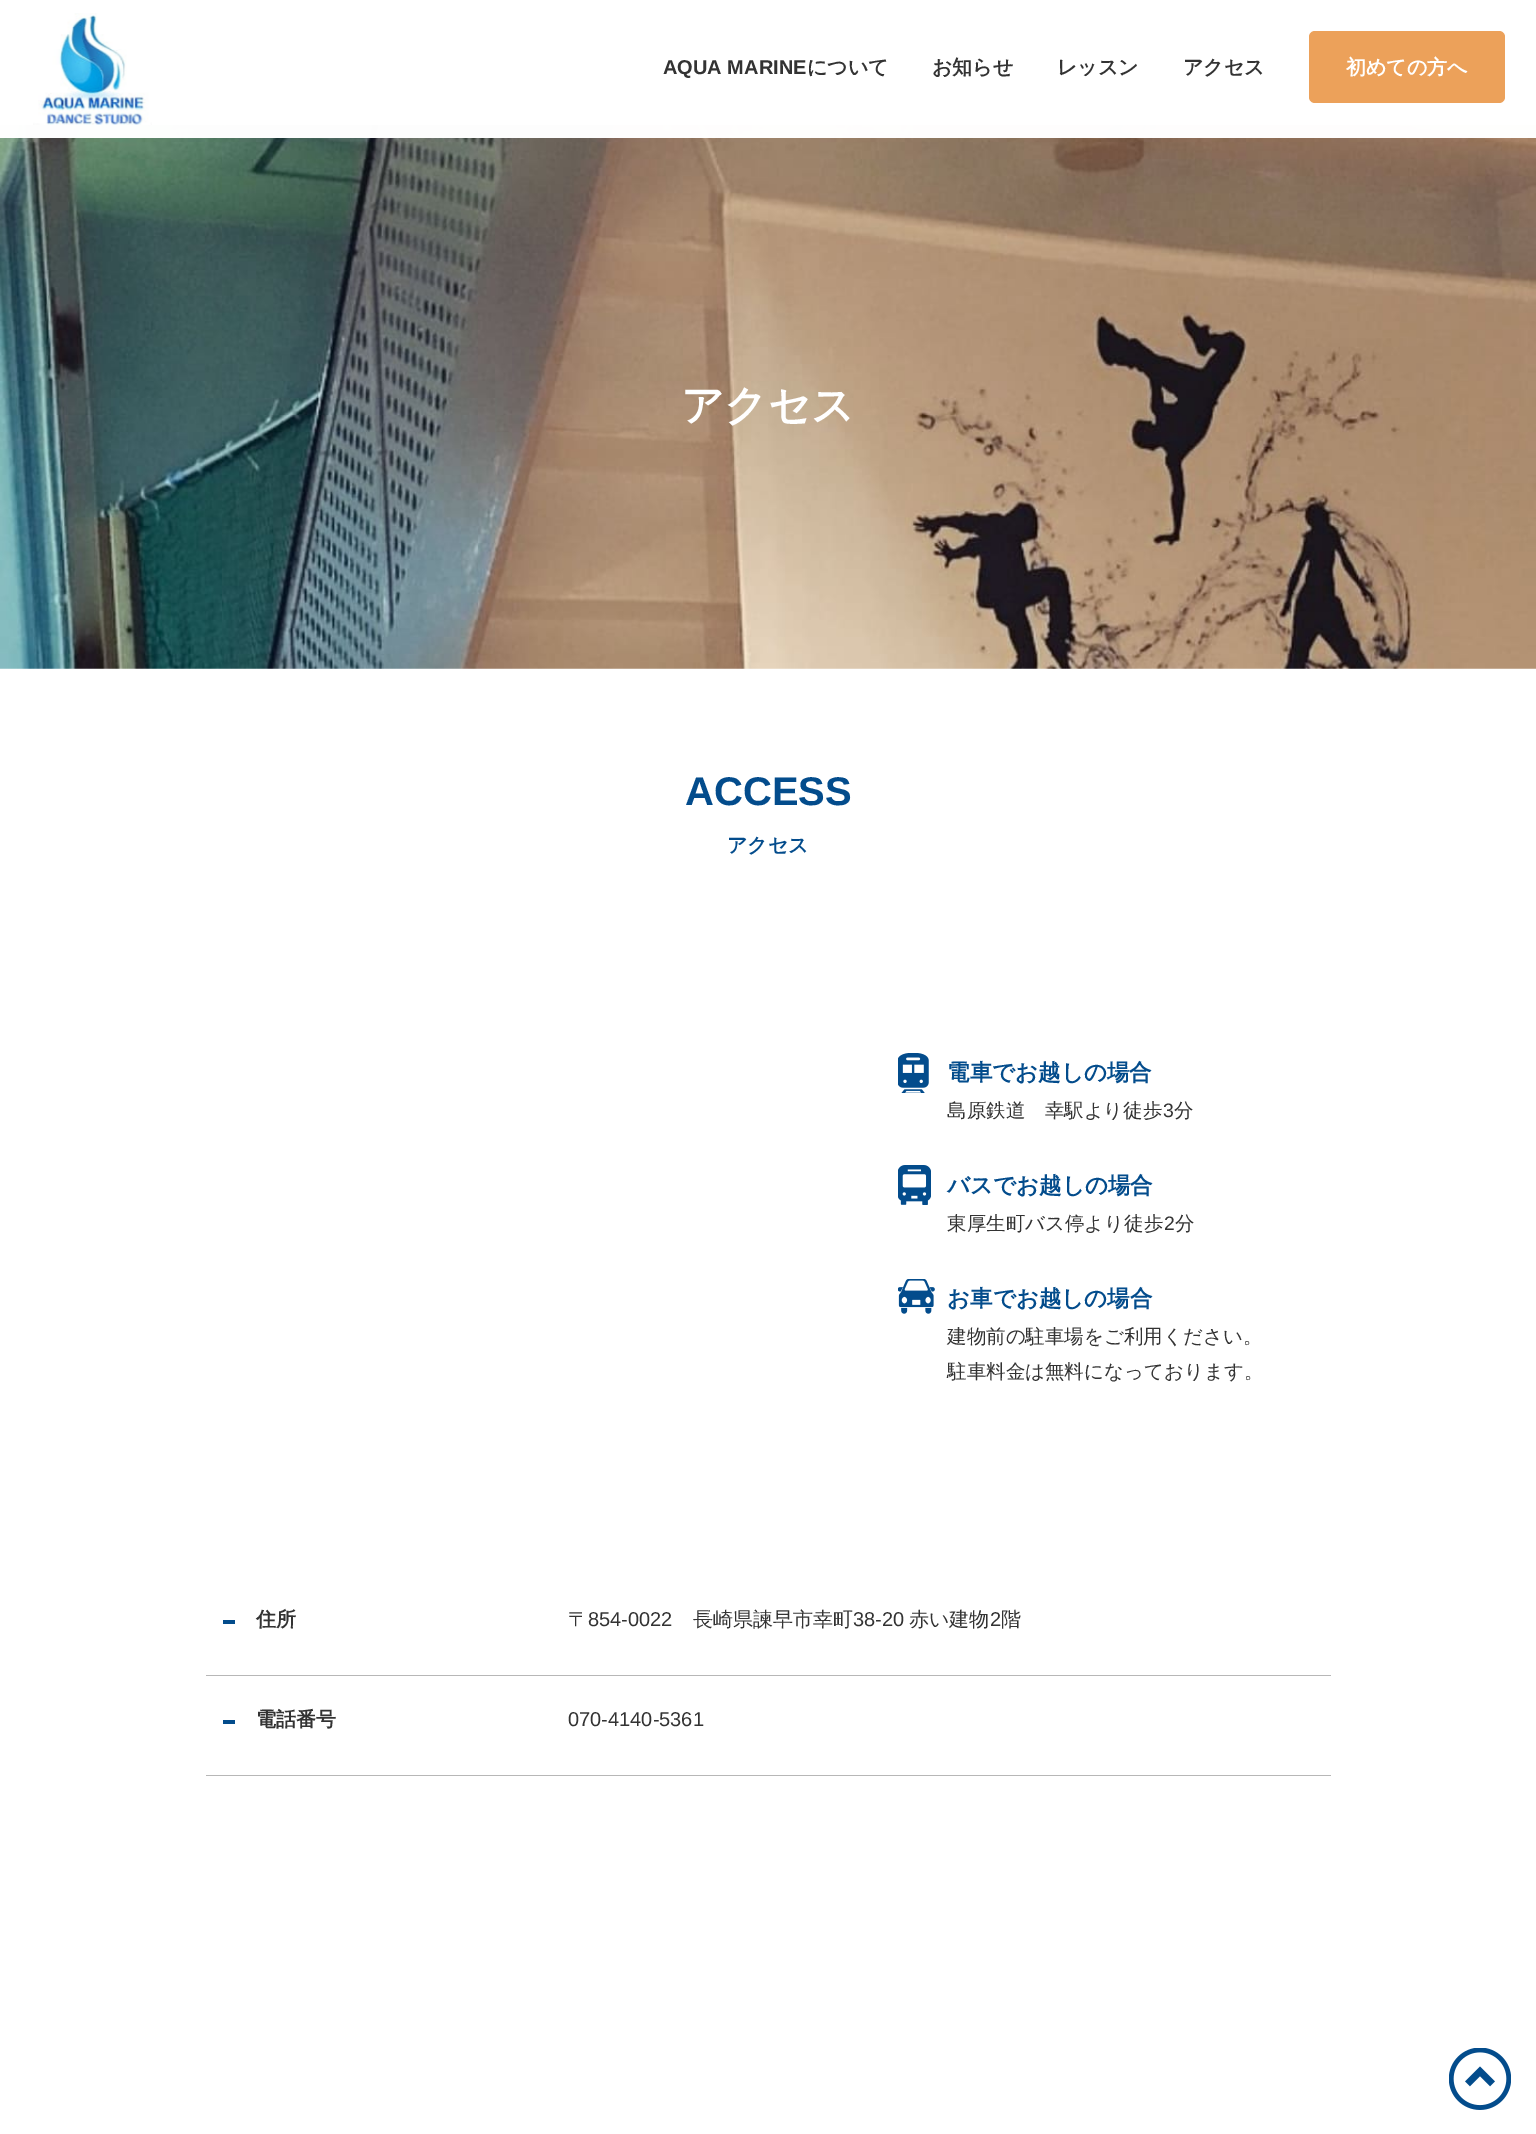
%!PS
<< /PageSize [1536 2134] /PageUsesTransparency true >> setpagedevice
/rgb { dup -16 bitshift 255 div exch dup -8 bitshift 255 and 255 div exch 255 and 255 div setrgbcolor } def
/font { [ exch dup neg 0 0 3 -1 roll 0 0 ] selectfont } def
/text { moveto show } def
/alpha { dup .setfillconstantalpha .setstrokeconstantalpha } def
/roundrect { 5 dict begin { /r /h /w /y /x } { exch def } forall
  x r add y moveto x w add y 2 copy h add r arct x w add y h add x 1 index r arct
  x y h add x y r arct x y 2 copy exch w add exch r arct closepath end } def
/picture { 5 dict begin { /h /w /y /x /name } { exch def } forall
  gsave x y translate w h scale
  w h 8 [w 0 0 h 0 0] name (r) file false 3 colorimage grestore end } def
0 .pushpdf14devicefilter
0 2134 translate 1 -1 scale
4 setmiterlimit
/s1 { /LiberationSans-Bold 20 font 16#333333 rgb } def
/s2 { /WenQuanYiZenHei-Bold 20 font 16#333333 rgb } def
/s3 { /WenQuanYiZenHei-Bold 20 font 16#FFFFFF rgb } def
/s4 { /WenQuanYiZenHei-Bold 42.5 font 16#FFFFFF rgb } def
/s5 { /LiberationSans-Bold 40 font 16#034C8C rgb } def
/s6 { /WenQuanYiZenHei-Bold 20 font 16#034C8C rgb } def
/s7 { /WenQuanYiZenHei-Bold 22.5 font 16#034C8C rgb } def
/s8 { /WenQuanYiZenHei-Medium 19.5 font 16#333333 rgb } def
/s9 { /LiberationSans-Regular 19.5 font 16#333333 rgb } def
/s10 { /WenQuanYiZenHei-Medium 20 font 16#333333 rgb } def
/s11 { /LiberationSans-Regular 20 font 16#333333 rgb } def
16#FFFFFF rgb
0 0 1536 2134 rectfill
(pic3.raw) 0 125 1536 544 picture
0.99 alpha
0 125 1536 13 rectfill
1 alpha
(pic1.raw) 33 13 119 112 picture
s1
(AQUA MARINE) 663 74 text
s2
(について) 807 74 text
(お知らせ) 932 74 text
(レッスン) 1057 74 text
(アクセス) 1183 74 text
16#ECA15A rgb
1309 31 196 72 6 roundrect fill
s3
(初めての方へ) 1346 74 text
(pic2.raw) 1449 2048 62 62 picture
s4
(アクセス) 681 420 text
s5
(ACCESS) 685 805 text
s6
(アクセス) 727 852 text
(pic4.raw) 898 1053 31 40 picture
s7
(電車でお越しの場合) 947 1080 text
s8
(島原鉄道　幸駅より徒歩) 947 1117 text
s9
(3) 1163 1117 text
s8
(分) 1174 1117 text
(pic5.raw) 898 1165 33 40 picture
s7
(バスでお越しの場合) 947 1193 text
s8
(東厚生町バス停より徒歩) 947 1230 text
s9
(2) 1164 1230 text
s8
(分) 1175 1230 text
(pic6.raw) 898 1279 37 35 picture
s7
(お車でお越しの場合) 947 1306 text
s8
(建物前の駐車場をご利用ください。) 947 1343 text
(駐車料金は無料になっております。) 947 1378 text
16#B7B7B7 rgb
206 1675 1125 1 rectfill
16#034C8C rgb
223 1620 12 4 rectfill
s2
(住所) 256 1626 text
s10
(〒) 568 1626 text
s11
(854-0022) 588 1626 text
s10
(長崎県諫早市幸町) 693 1626 text
s11
(38-20) 853 1626 text
s10
(赤い建物) 909 1626 text
s11
(2) 990 1626 text
s10
(階) 1001 1626 text
16#B7B7B7 rgb
206 1775 1125 1 rectfill
16#034C8C rgb
223 1720 12 4 rectfill
s2
(電話番号) 256 1726 text
s11
(070-4140-5361) 568 1726 text
.poppdf14devicefilter showpage
